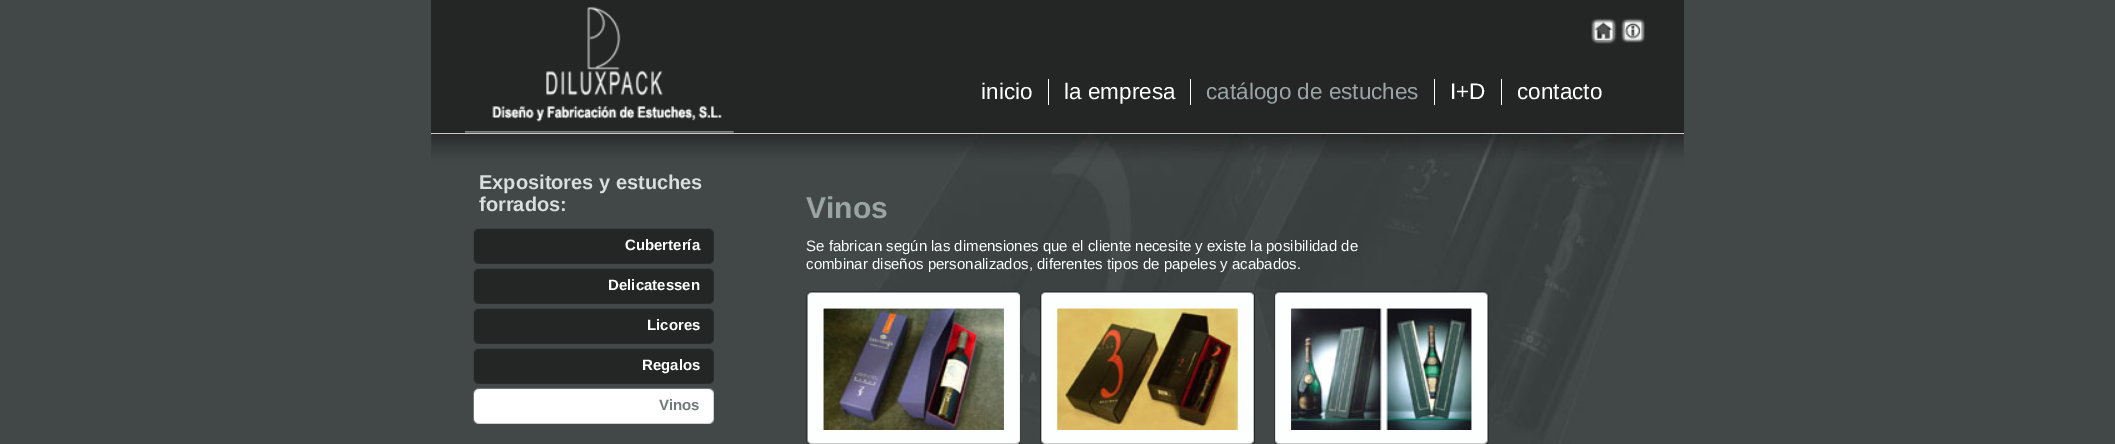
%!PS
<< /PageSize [2115 444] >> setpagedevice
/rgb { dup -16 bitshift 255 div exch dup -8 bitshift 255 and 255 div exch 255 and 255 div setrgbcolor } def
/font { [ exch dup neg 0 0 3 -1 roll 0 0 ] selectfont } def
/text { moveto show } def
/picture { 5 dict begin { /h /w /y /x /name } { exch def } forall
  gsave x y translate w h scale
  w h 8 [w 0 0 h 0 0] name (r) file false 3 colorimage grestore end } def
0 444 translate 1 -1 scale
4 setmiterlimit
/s1 { /LiberationSans-Regular 22.5 font 16#FFFFFF rgb } def
/s2 { /LiberationSans-Regular 22.5 font 16#9AA4A4 rgb } def
/s3 { /LiberationSans-Bold 20 font 16#D9DEDE rgb } def
/s4 { /LiberationSans-Bold 15 font 16#FFFFFF rgb } def
/s5 { /LiberationSans-Bold 15 font 16#717A7A rgb } def
/s6 { /LiberationSans-Bold 30 font 16#9AA4A4 rgb } def
/s7 { /LiberationSans-Regular 15 font 16#FFFFFF rgb } def
16#424747 rgb
0 0 2115 444 rectfill
16#242525 rgb
431 0 1253 133 rectfill
16#FFFFFF rgb
431 133 1253 1 rectfill
(pic1.raw) 465 7 269 126 picture
(pic2.raw) 1591 18 26 26 picture
(pic3.raw) 1621 18 24 25 picture
s1
(inicio) 981 99 text
1048 79 1 26 rectfill
(la empresa) 1064 99 text
1190 79 1 26 rectfill
s2
(catálogo de estuches) 1206 99 text
16#FFFFFF rgb
1434 79 1 26 rectfill
(I+D) 1450 99 text
1501 79 1 26 rectfill
(contacto) 1517 99 text
(pic4.raw) 431 133 1253 311 picture
s3
(Expositores y estuches) 479 189 text
(forrados:) 479 211 text
(pic5.raw) 473 228 241 36 picture
s4
(Cubertería) 625 250 text
(pic5.raw) 473 268 241 36 picture
(Delicatessen) 608 290 text
(pic5.raw) 473 308 241 36 picture
(Licores) 647 330 text
(pic5.raw) 473 348 241 36 picture
(Regalos) 642 370 text
(pic6.raw) 473 388 241 36 picture
s5
(Vinos) 659 410 text
s6
(Vinos) 806 218 text
s7
(Se fabrican según las dimensiones que el cliente necesite y existe la posibilidad de) 806 251 text
(combinar diseños personalizados, diferentes tipos de papeles y acabados.) 806 269 text
(pic7.raw) 806 291 215 153 picture
(pic8.raw) 823 308 181 122 picture
(pic9.raw) 1040 291 215 153 picture
(pic10.raw) 1057 308 181 122 picture
(pic11.raw) 1274 291 215 153 picture
(pic12.raw) 1291 308 181 122 picture
showpage
